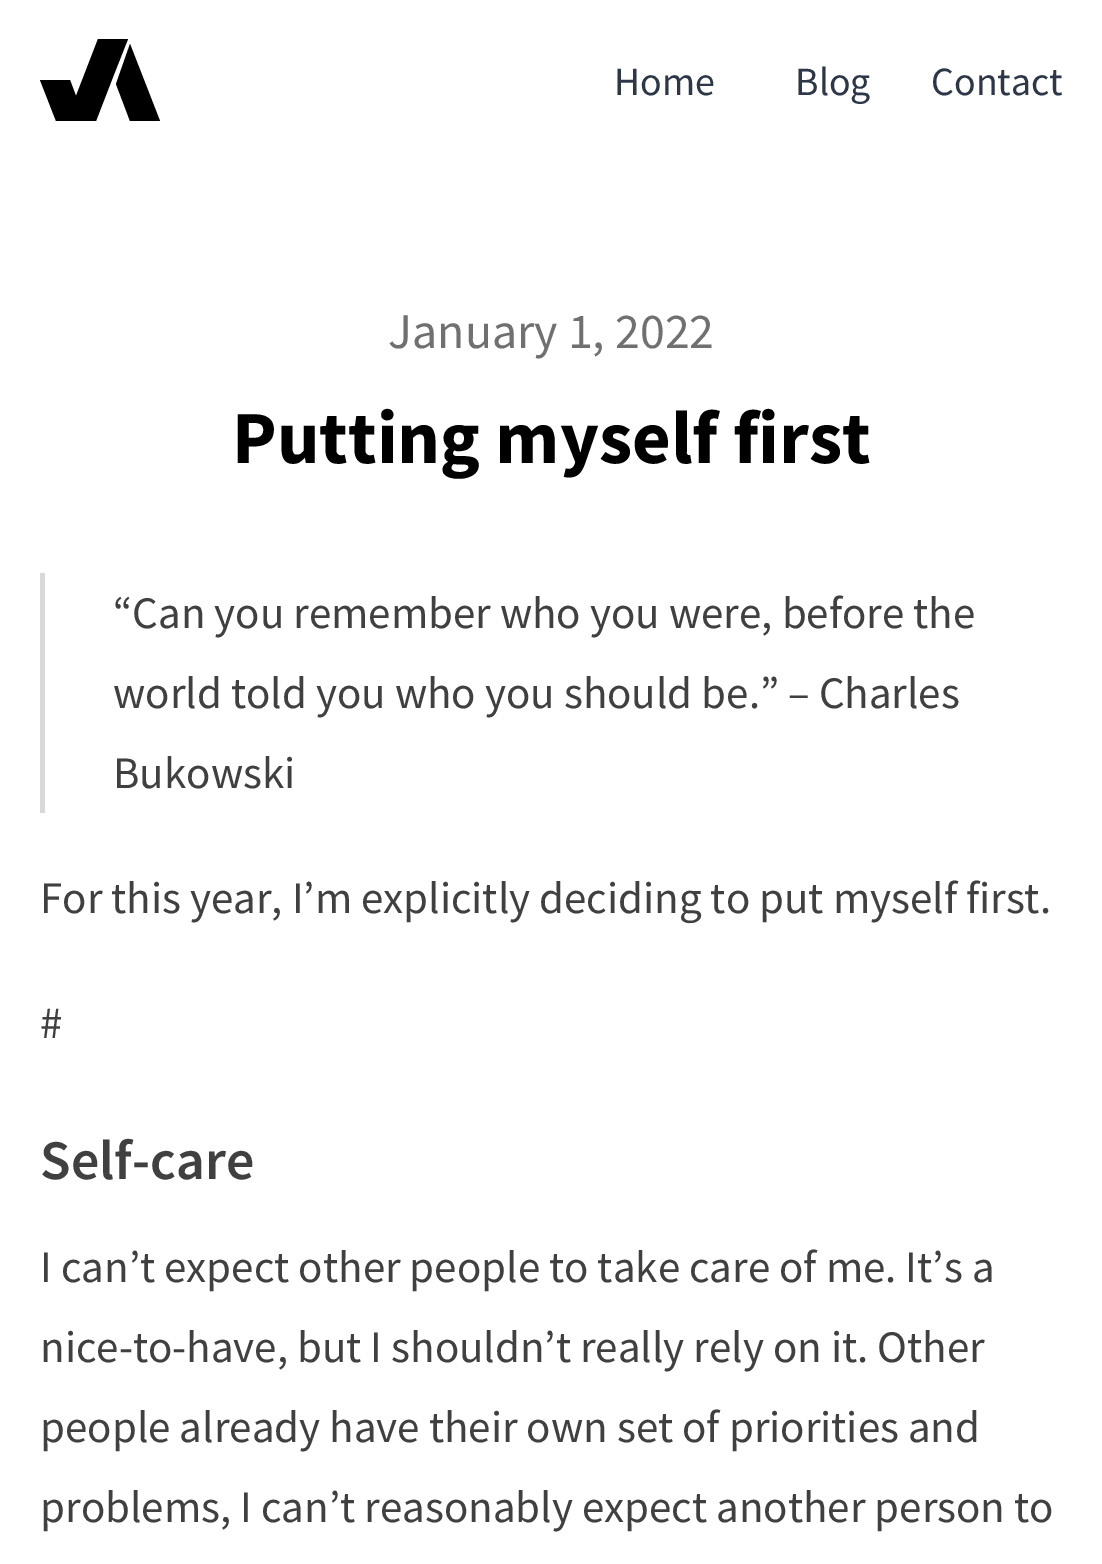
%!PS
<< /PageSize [1102 1564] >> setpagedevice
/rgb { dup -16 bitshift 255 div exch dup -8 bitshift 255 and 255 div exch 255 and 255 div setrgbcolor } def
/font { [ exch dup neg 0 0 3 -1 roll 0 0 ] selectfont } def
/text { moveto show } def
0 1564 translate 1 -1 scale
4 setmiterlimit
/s1 { /SourceSansPro-Regular 40 font 16#2D3748 rgb } def
/s2 { /SourceSansPro-Regular 50 font 16#707070 rgb } def
/s3 { /SourceSansPro-Bold 75 font 16#000000 rgb } def
/s4 { /SourceSansPro-Regular 45 font 16#404040 rgb } def
/s5 { /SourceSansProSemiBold-SemiBold 56 font 16#404040 rgb } def
16#FFFFFF rgb
0 0 1102 1564 rectfill
16#000000 rgb
116 84 moveto 130 121 lineto 160 121 lineto 130 44 lineto closepath fill
96 121 moveto 56 121 lineto 40 80 lineto 70 80 lineto 76 96 lineto 98 39 lineto 128 39 lineto 113 77 lineto closepath fill
s1
(Home) 614 95 text
(Blog) 795 95 text
(Contact) 931 95 text
s2
(January 1, 2022) 388 348 text
s3
(Putting myself first) 232 463 text
16#D9D9D9 rgb
40 573 5 240 rectfill
s4
(“Can you remember who you were, before the) 113 628 text
(world told you who you should be.” – Charles) 113 708 text
(Bukowski) 113 788 text
(For this year, I’m explicitly deciding to put myself first.) 40 913 text
(#) 40 1038 text
s5
(Self-care) 40 1179 text
s4
(I can’t expect other people to take care of me. It’s a) 40 1282 text
(nice-to-have, but I shouldn’t really rely on it. Other) 40 1362 text
(people already have their own set of priorities and) 40 1442 text
(problems, I can’t reasonably expect another person to) 40 1522 text
showpage
